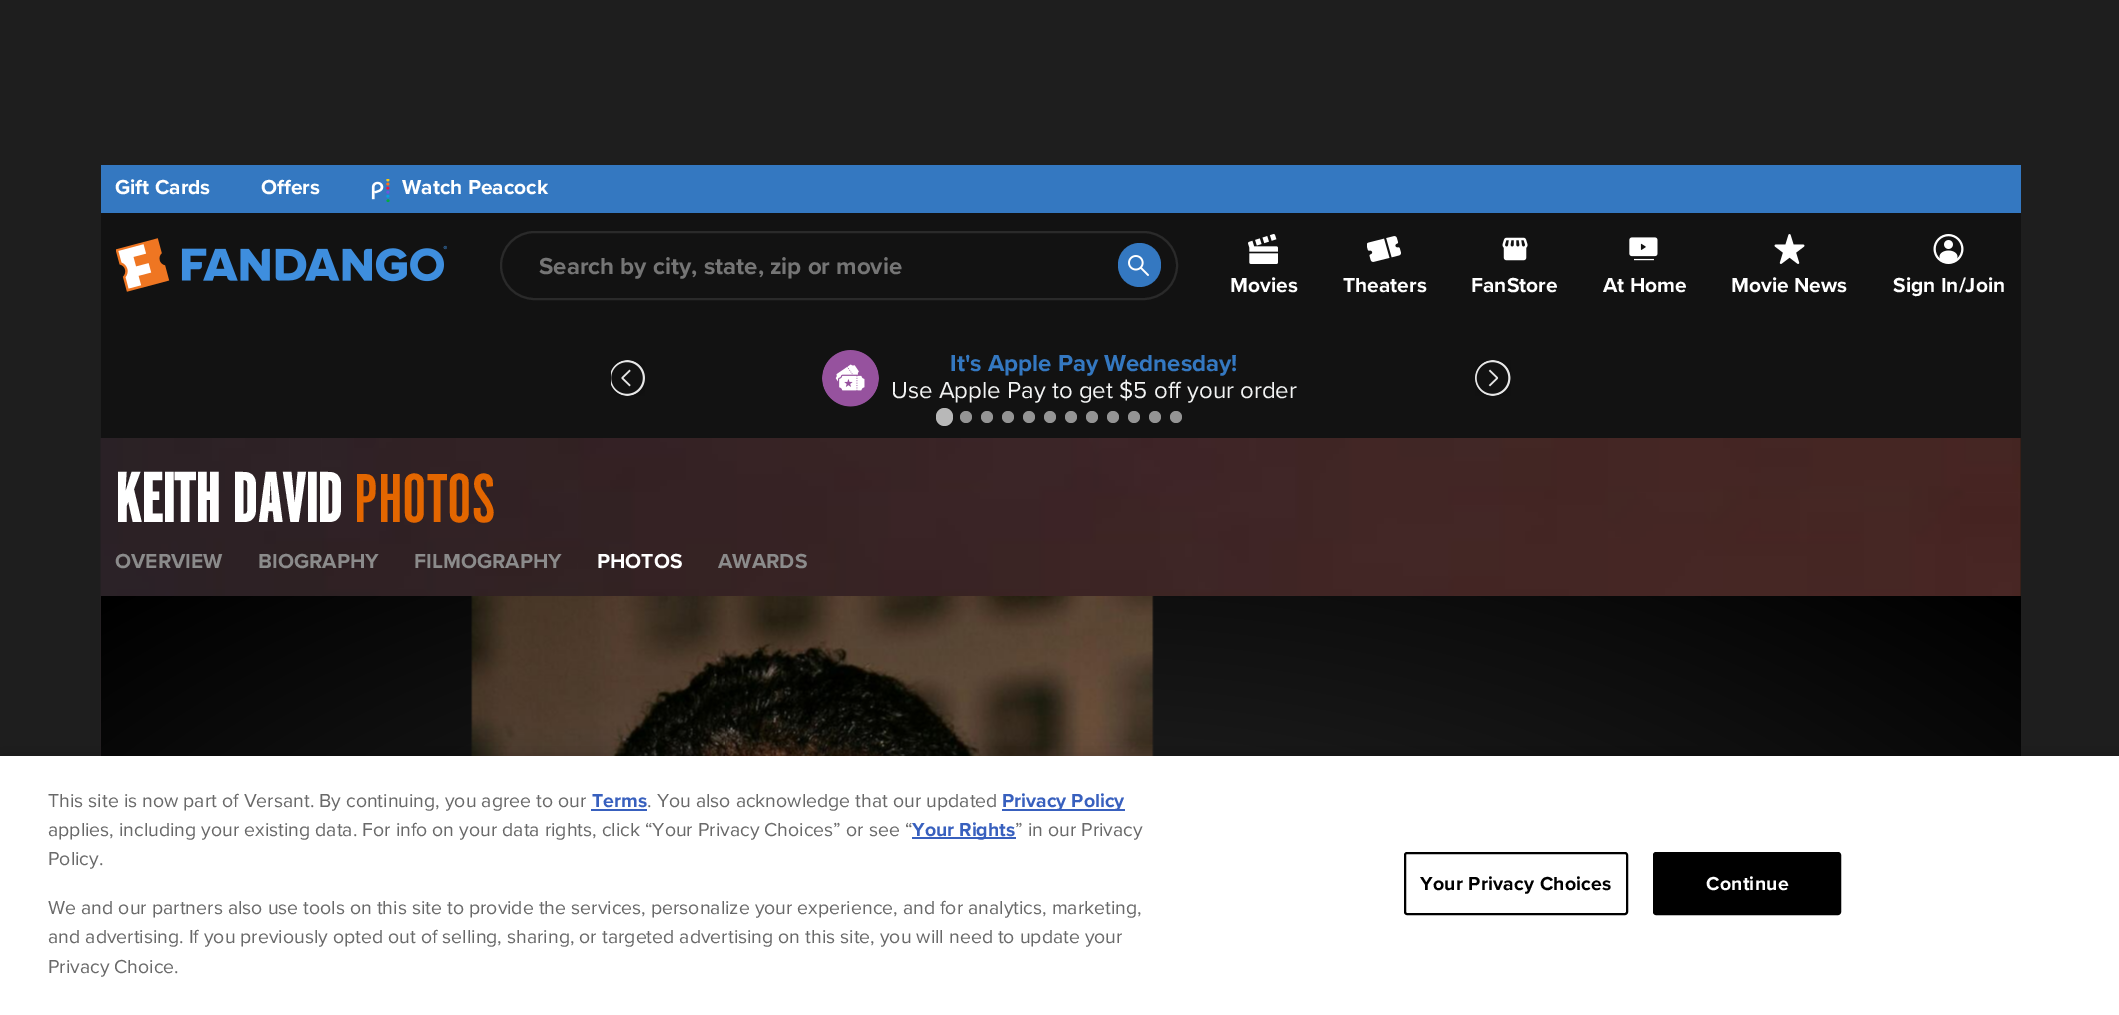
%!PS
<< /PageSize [2119 1015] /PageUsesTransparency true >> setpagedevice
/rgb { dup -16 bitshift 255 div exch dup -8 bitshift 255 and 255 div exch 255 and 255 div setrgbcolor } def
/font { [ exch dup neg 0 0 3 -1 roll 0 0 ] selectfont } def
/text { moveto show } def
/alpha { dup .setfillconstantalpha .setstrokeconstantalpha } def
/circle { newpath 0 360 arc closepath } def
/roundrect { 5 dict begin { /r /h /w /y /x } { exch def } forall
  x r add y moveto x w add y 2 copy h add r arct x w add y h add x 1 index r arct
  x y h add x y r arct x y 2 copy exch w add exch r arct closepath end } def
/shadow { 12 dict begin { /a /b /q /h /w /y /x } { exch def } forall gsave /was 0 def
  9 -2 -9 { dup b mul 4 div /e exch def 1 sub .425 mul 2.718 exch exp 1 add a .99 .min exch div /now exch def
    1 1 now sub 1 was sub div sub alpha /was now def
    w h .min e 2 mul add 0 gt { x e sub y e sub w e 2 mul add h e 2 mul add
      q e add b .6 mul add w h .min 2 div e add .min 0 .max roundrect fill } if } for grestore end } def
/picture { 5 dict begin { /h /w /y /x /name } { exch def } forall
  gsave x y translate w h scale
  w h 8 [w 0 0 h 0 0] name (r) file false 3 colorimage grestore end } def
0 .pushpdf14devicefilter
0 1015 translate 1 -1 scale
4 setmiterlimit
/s1 { /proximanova-Bold 21 font 16#FFFFFF rgb } def
/s2 { /proximanova-Bold 24 font 16#757575 rgb } def
/s3 { /proximanova-Bold 24 font 16#3478C1 rgb } def
/s4 { /ProximaNova-Regular 24 font 16#F2F3F3 rgb } def
/s5 { /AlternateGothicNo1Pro-Bold 72 font 16#FFFFFF rgb } def
/s6 { /AlternateGothicNo1Pro-Regular 72 font 16#E36600 rgb } def
/s7 { /proximanova-Bold 21 font 16#8B8B8B rgb } def
/s8 { /ProximaNova-Regular 19.5 font 16#696969 rgb } def
/s9 { /proximanova-Bold 19.5 font 16#3860BE rgb } def
16#1E1E1E rgb
0 0 2119 1015 rectfill
16#3478C1 rgb
101 165 1920 48 rectfill
s1
(Gift Cards) 115 194 text
(Offers) 261 194 text
(pic1.raw) 371 179 19 24 picture
(Watch Peacock) 402 194 text
16#121212 rgb
101 213 1920 225 rectfill
(pic2.raw) 116 238 331 54 picture
16#2A2A2A rgb
2 setlinewidth
501 232 676 67 33.5 roundrect stroke
s2
(Search by city, state, zip or movie) 539 274 text
16#3478C1 rgb
1118 243 43 44 21.5 roundrect fill
(pic3.raw) 1128 255 21 21 picture
(pic4.raw) 1248 234 30 30 picture
s1
(Movies) 1230 292 text
(pic5.raw) 1367 236 34 26 picture
(Theaters) 1343 292 text
(pic6.raw) 1502 237 26 24 picture
(FanStore) 1471 292 text
(pic7.raw) 1629 237 29 24 picture
(At Home) 1603 292 text
(pic8.raw) 1774 234 31 30 picture
(Movie News) 1731 292 text
(pic9.raw) 1933 234 31 30 picture
(Sign In/Join) 1893 292 text
(pic10.raw) 611 360 34 36 picture
(pic11.raw) 822 350 57 57 picture
s3
(It's Apple Pay Wednesday!) 950 371 text
s4
(Use Apple Pay to get $5 off your order) 891 398 text
(pic12.raw) 1475 360 36 36 picture
16#B8B8B8 rgb
936 408 17 18 8.5 roundrect fill
16#949494 rgb
966 417 6 circle fill
987 417 6 circle fill
1008 417 6 circle fill
1029 417 6 circle fill
1050 417 6 circle fill
1071 417 6 circle fill
1092 417 6 circle fill
1113 417 6 circle fill
1134 417 6 circle fill
1155 417 6 circle fill
1176 417 6 circle fill
16#271A10 rgb
2020 438 1 158 rectfill
(pic13.raw) 100 438 1921 318 picture
s5
(KEITH DAVID) 115 522 text
s6
(PHOTOS) 354 522 text
s7
(OVERVIEW) 115 568 text
(BIOGRAPHY) 258 568 text
(FILMOGRAPHY) 414 568 text
s1
(PHOTOS) 597 568 text
s7
(AWARDS) 718 568 text
gsave 101 596 moveto 2021 596 lineto 2021 756 lineto 101 756 lineto closepath clip newpath 1061 1113 translate 1358 732 scale
<< /ShadingType 3 /ColorSpace /DeviceRGB /Coords [0 0 0 0 0 1] /Extend [true true] /Function << /FunctionType 2 /Domain [0 1] /C0 [0.2 0.2 0.2] /C1 [0 0 0] /N 1 >> >> shfill grestore
(pic14.raw) 471 596 683 160 picture
16#000000 rgb
0 756 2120 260 0 13.5 0.2 shadow
16#FFFFFF rgb
0 756 2119 259 rectfill
s8
(This site is now part of Versant. By continuing, you agree to our) 48 807 text
s9
(Terms) 592 807 text
591 809 56 2 rectfill
s8
(. You also acknowledge that our updated) 647 807 text
16#3860BE rgb
1002 809 123 2 rectfill
s9
(Privacy Policy) 1002 807 text
s8
(applies, including your existing data. For info on your data rights, click “Your Privacy Choices” or see “) 48 836 text
16#3860BE rgb
912 837 104 2 rectfill
s9
(Your Rights) 912 836 text
s8
(” in our Privacy) 1015 836 text
(Policy.) 48 865 text
(We and our partners also use tools on this site to provide the services, personalize your experience, and for analytics, marketing,) 48 914 text
(and advertising. If you previously opted out of selling, sharing, or targeted advertising on this site, you will need to update your) 48 943 text
(Privacy Choice.) 48 973 text
16#000000 rgb
1405 853 222 61 2 roundrect stroke
/proximanova-Bold 19.5 font
1420 890 moveto 0.25 0 (Your Privacy Choices) ashow
1654 853 186 61 2 roundrect gsave fill grestore
stroke
16#FFFFFF rgb
1706 890 moveto 0.25 0 (Continue) ashow
.poppdf14devicefilter showpage
